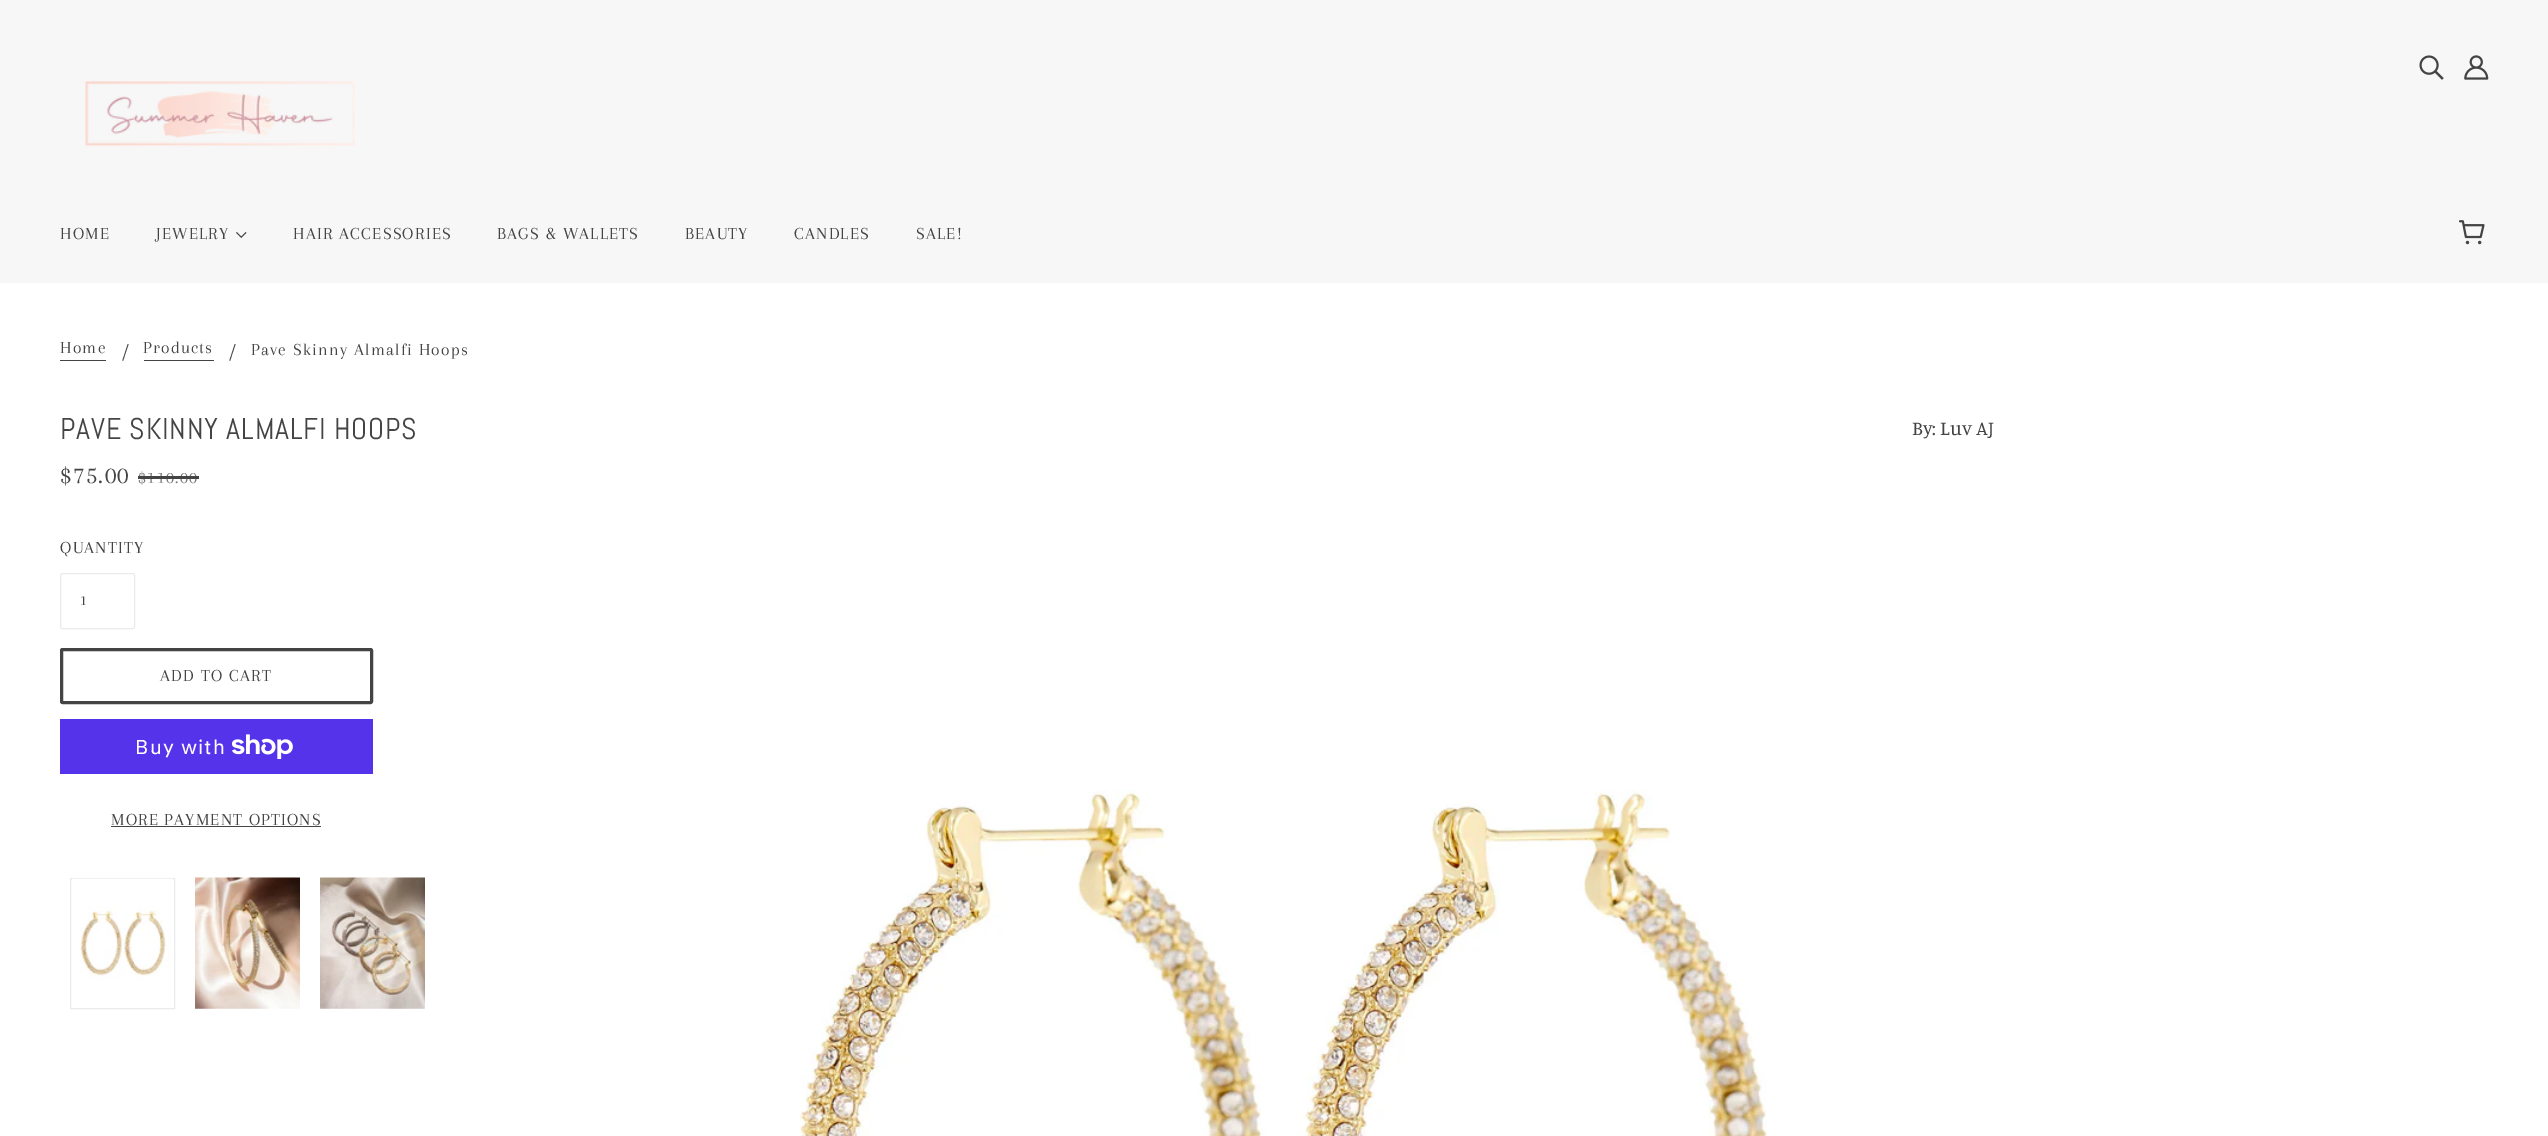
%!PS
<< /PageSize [2548 1136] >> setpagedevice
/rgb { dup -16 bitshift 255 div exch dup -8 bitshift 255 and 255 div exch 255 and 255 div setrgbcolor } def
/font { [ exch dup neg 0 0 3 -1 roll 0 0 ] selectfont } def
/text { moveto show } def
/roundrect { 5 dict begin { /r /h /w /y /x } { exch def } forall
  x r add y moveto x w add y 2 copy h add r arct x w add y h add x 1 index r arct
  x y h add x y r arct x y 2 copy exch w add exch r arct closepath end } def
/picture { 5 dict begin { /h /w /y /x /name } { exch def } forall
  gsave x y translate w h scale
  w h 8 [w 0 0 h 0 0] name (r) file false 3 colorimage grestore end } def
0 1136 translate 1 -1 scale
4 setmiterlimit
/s1 { /Manuale-Regular 20 font 16#444444 rgb } def
16#FFFFFF rgb
0 0 2548 1136 rectfill
16#F7F7F7 rgb
0 0 2548 283 rectfill
(pic1.raw) 2419 55 25 25 picture
(pic2.raw) 2464 55 25 25 picture
(pic3.raw) 85 81 270 66 picture
/Arapey-Regular 17.5 font
16#444444 rgb
60 239 moveto 1.25 0 (HOME) ashow
156 239 moveto 1.25 0 (JEWELRY) ashow
(pic4.raw) 236 232 11 6 picture
293 239 moveto 1.25 0 (HAIR ACCESSORIES) ashow
497 239 moveto 1.25 0 (BAGS & WALLETS) ashow
685 239 moveto 1.25 0 (BEAUTY) ashow
794 239 moveto 1.25 0 (CANDLES) ashow
916 239 moveto 1.25 0 (SALE!) ashow
(pic5.raw) 2459 220 26 25 picture
60 353 moveto 1.25 0 (Home) ashow
60 360 46 1 rectfill
s1
(/) 122 358 text
/Arapey-Regular 17.5 font
143 353 moveto 1.25 0 (Products) ashow
144 360 70 1 rectfill
s1
(/) 229 358 text
/Arapey-Regular 17.5 font
251 355 moveto 1.25 0 (Pave Skinny Almalfi Hoops) ashow
/Abel-Regular 30 font
60 439 moveto 0.75 0 (PAVE SKINNY ALMALFI HOOPS) ashow
s1
(By: Luv AJ) 1912 435 text
/Arapey-Regular 25 font
60 483 moveto 1.25 0 ($75.00) ashow
/Arapey-Regular 17.5 font
16#747474 rgb
138 483 moveto 1.25 0 ($110.00) ashow
16#444444 rgb
138 476 61 3 rectfill
60 553 moveto 1.25 0 (QUANTITY) ashow
16#EBEBEB rgb
60.5 573.5 74 55 2 roundrect stroke
/Arapey-Regular 15 font
16#444444 rgb
80 605 moveto 1 0 (1) ashow
3 setlinewidth
61.5 649.5 310 53 1 roundrect stroke
/Arapey-Regular 17.5 font
160 681 moveto 1.25 0 (ADD TO CART) ashow
16#5433EB rgb
60 719 313 55 rectfill
/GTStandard-Regular 20 font
16#FFFFFF rgb
135 754 moveto 1.25 0 (Buy with) ashow
(pic6.raw) 231 734 62 25 picture
/Arapey-Regular 17.5 font
16#444444 rgb
111 825 moveto 1.25 0 (MORE PAYMENT OPTIONS) ashow
111 826 210 1 rectfill
16#EBEBEB rgb
1 setlinewidth
70.5 878.5 104 130 rectstroke
(pic7.raw) 72 878 101 101 picture
(pic8.raw) 195 877 105 132 picture
(pic9.raw) 320 877 105 132 picture
(pic10.raw) 800 790 967 346 picture
showpage
